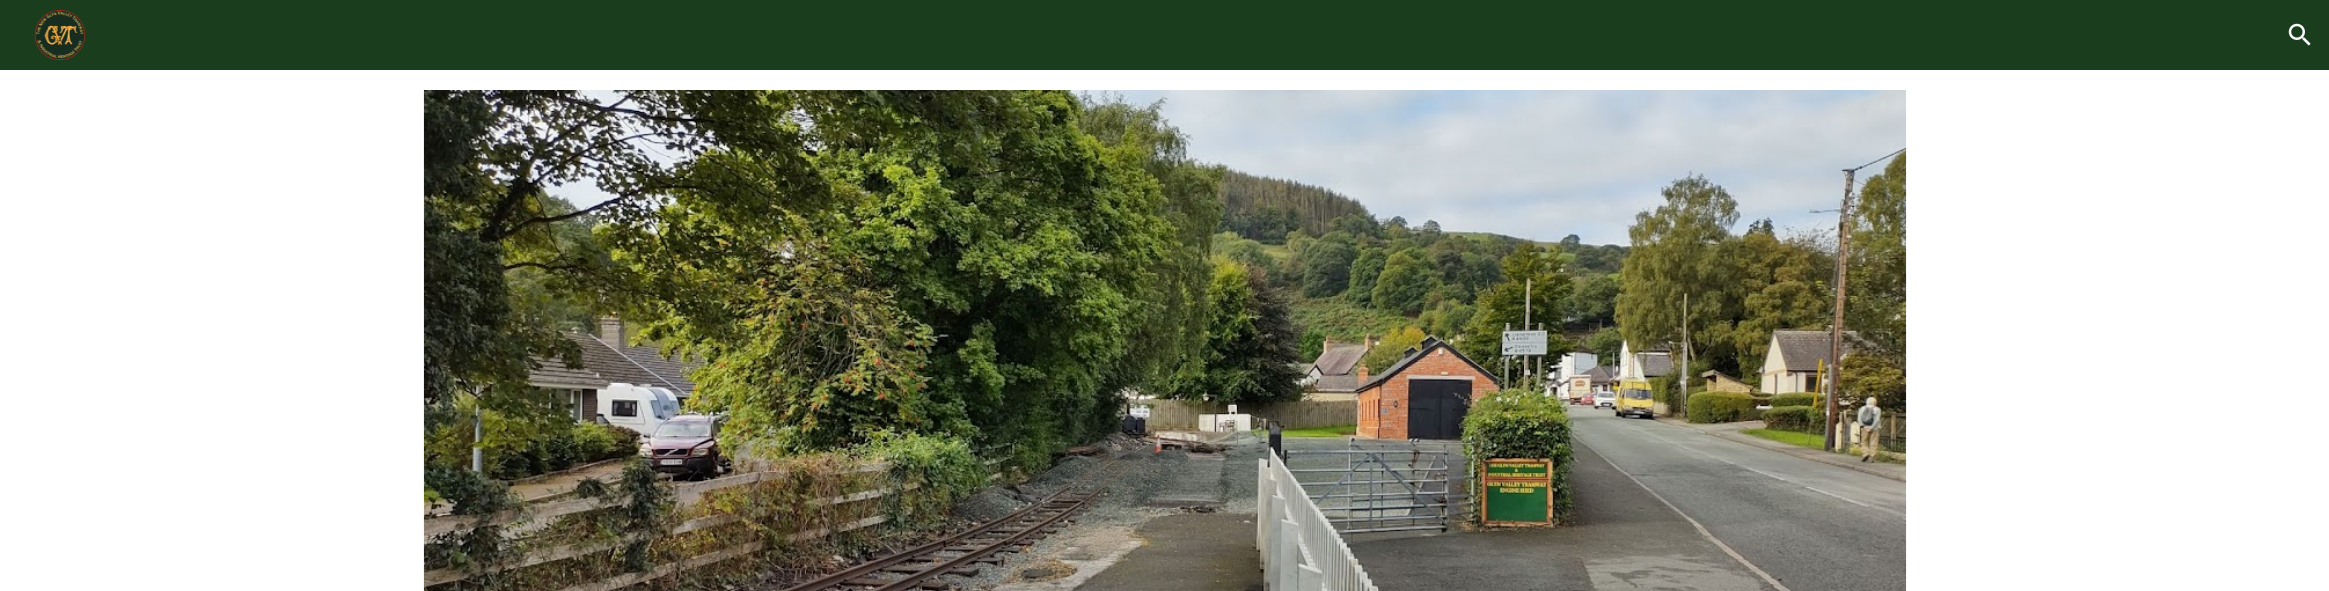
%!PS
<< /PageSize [2329 591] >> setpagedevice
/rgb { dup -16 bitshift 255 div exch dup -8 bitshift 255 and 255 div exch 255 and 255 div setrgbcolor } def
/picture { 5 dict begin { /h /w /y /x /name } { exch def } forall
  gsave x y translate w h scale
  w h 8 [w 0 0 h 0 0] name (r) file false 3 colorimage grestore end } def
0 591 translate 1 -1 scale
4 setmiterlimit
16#FFFFFF rgb
0 0 2329 591 rectfill
16#193D1D rgb
0 0 2329 70 rectfill
(pic1.raw) 34 10 52 50 picture
(pic2.raw) 2288 23 23 23 picture
(pic3.raw) 423 90 1484 501 picture
showpage
